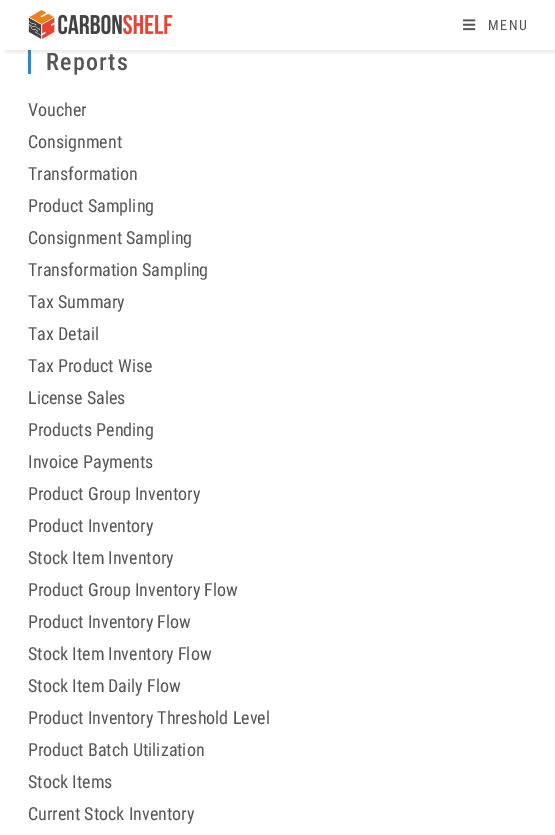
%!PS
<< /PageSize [555 835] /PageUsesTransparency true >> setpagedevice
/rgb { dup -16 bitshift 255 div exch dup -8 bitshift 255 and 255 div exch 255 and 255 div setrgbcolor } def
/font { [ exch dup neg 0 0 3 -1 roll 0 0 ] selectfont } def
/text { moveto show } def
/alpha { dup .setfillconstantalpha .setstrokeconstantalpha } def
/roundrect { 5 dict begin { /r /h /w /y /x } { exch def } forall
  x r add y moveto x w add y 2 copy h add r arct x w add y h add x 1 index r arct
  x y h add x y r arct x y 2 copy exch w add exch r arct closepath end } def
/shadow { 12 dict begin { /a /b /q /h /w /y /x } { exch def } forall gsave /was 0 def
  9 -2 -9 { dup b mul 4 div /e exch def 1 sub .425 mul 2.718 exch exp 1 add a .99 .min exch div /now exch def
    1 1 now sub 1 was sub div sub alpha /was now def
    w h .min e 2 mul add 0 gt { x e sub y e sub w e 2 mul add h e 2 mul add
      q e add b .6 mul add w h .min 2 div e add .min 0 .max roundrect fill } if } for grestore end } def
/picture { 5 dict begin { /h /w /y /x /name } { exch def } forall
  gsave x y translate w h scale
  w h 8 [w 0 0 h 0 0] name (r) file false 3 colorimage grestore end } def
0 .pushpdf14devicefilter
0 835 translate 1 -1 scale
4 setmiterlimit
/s1 { /RobotoCondensed-Regular 18 font 16#565656 rgb } def
16#FFFFFF rgb
0 0 555 835 rectfill
16#228BD6 rgb
28 50 3 24 rectfill
gsave
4 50 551 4 rectclip
16#000000 rgb
5 2 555 50 0 2.5 0.1 shadow
grestore
(pic1.raw) 28 10 145 29 picture
(pic2.raw) 463 19 13 12 picture
/RobotoCondensed-Regular 14 font
16#565656 rgb
488 30 moveto 1.5 0 (MENU) ashow
/RobotoCondensed-Medium 24 font
46 70 moveto 1.25 0 (Reports) ashow
s1
(Voucher) 28 116 text
(Consignment) 28 148 text
(Transformation) 28 180 text
(Product Sampling) 28 212 text
(Consignment Sampling) 28 244 text
(Transformation Sampling) 28 276 text
(Tax Summary) 28 308 text
(Tax Detail) 28 340 text
(Tax Product Wise) 28 372 text
(License Sales) 28 404 text
(Products Pending) 28 436 text
(Invoice Payments) 28 468 text
(Product Group Inventory) 28 500 text
(Product Inventory) 28 532 text
(Stock Item Inventory) 28 564 text
(Product Group Inventory Flow) 28 596 text
(Product Inventory Flow) 28 628 text
(Stock Item Inventory Flow) 28 660 text
(Stock Item Daily Flow) 28 692 text
(Product Inventory Threshold Level) 28 724 text
(Product Batch Utilization) 28 756 text
(Stock Items) 28 788 text
(Current Stock Inventory) 28 820 text
.poppdf14devicefilter showpage
